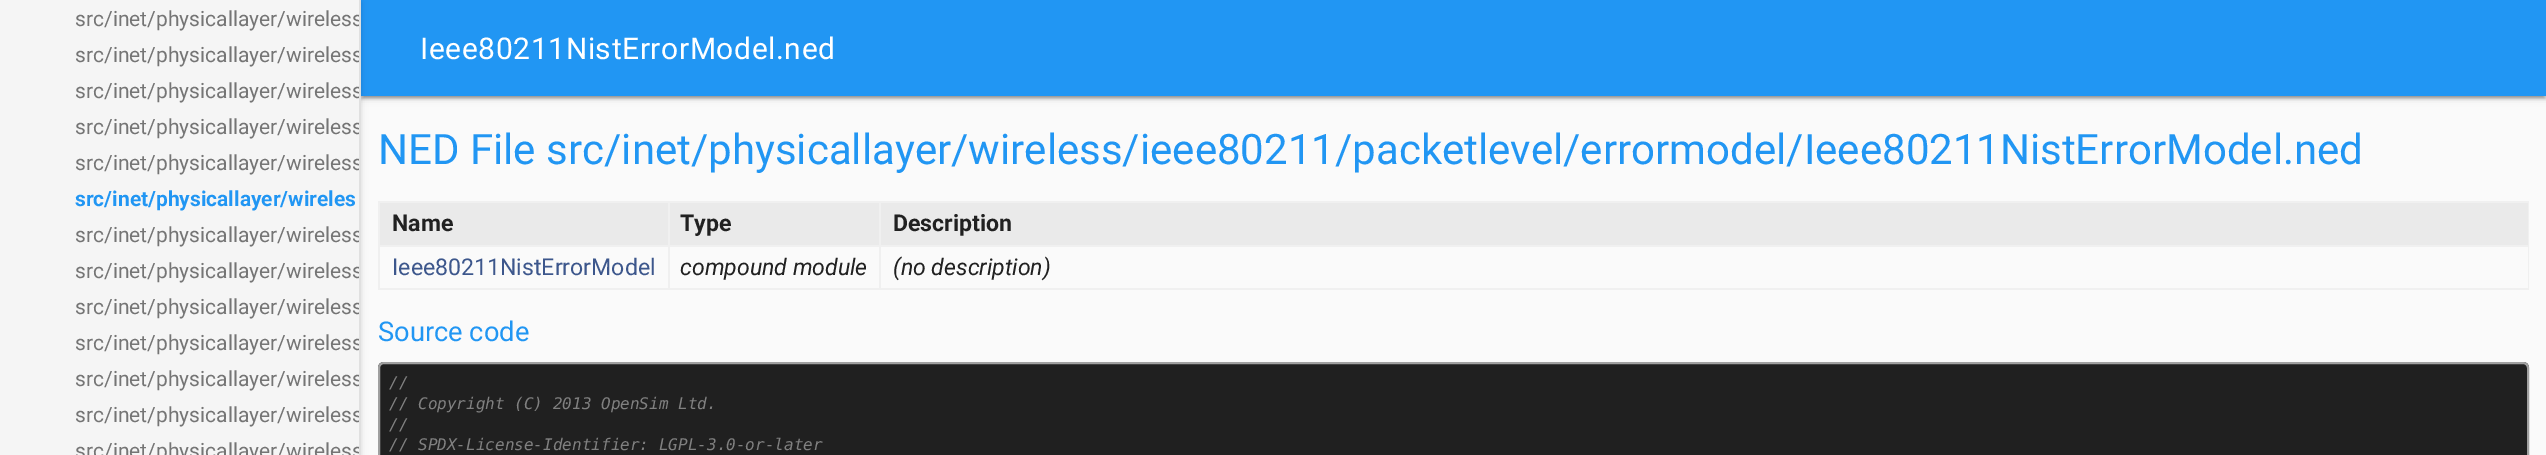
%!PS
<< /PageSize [2546 455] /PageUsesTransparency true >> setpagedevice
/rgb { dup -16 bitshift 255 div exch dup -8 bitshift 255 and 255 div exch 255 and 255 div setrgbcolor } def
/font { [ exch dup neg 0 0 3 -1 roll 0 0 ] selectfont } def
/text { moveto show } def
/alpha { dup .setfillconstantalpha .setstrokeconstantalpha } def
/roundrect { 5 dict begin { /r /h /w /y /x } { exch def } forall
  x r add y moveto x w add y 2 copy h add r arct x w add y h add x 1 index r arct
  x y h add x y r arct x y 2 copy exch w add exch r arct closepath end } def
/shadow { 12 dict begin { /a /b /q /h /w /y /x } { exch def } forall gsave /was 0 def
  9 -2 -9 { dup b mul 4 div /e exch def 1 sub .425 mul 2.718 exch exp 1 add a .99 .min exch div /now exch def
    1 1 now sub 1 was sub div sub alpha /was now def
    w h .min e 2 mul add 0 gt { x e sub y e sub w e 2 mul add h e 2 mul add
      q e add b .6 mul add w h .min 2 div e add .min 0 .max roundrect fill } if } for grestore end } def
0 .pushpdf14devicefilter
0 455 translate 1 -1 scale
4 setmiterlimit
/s1 { /Roboto-Regular 21 font 16#757575 rgb } def
/s2 { /Roboto-Bold 21 font 16#2196F3 rgb } def
/s3 { /Roboto-Regular 42 font 16#2196F3 rgb } def
/s4 { /Roboto-Bold 23.1 font 16#212121 rgb } def
/s5 { /Roboto-Regular 23.1 font 16#3D578C rgb } def
/s6 { /Roboto-Italic 23.1 font 16#212121 rgb } def
/s7 { /Roboto-Regular 27.25 font 16#2196F3 rgb } def
/s8 { /DejaVuSansMono-Italic 16 font 16#808080 rgb } def
16#FAFAFA rgb
0 0 2546 455 rectfill
16#000000 rgb
360 2 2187 96 0 4 0.12 shadow
363 8 2181 90 0 1 0.2 shadow
360 3 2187 96 0 1.5 0.14 shadow
16#2196F3 rgb
361 0 2185 96 rectfill
16#000000 rgb
0 2 360 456 0 4 0.12 shadow
0 3 360 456 0 1.5 0.14 shadow
16#E0E0E0 rgb
359 0 2 455 rectfill
16#F5F5F5 rgb
0 0 359 455 rectfill
gsave
0 0 359 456 rectclip
s1
(src/inet/physicallayer/wireless) 75 26 text
(src/inet/physicallayer/wireless) 75 62 text
(src/inet/physicallayer/wireless) 75 98 text
(src/inet/physicallayer/wireless) 75 134 text
(src/inet/physicallayer/wireless) 75 170 text
grestore
s2
(src/inet/physicallayer/wireles) 75 206 text
gsave
0 0 359 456 rectclip
s1
(src/inet/physicallayer/wireless) 75 242 text
(src/inet/physicallayer/wireless) 75 278 text
(src/inet/physicallayer/wireless) 75 314 text
(src/inet/physicallayer/wireless) 75 350 text
(src/inet/physicallayer/wireless) 75 386 text
(src/inet/physicallayer/wireless) 75 422 text
(src/inet/physicallayer/wireless) 75 458 text
grestore
/Roboto-Regular 30 font
16#FFFFFF rgb
420 59 moveto 0.6 0 (Ieee80211NistErrorModel.ned) ashow
s3
(NED File src/inet/physicallayer/wireless/ieee80211/packetlevel/errormodel/Ieee80211NistErrorModel.ned) 378 164 text
16#F0F0F0 rgb
378 201 2151 2 rectfill
2528 201 1 89 rectfill
378 288 2151 2 rectfill
378 201 2 89 rectfill
16#EAEAEA rgb
380 203 288 42 rectfill
s4
(Name) 392 231 text
16#EAEAEA rgb
670 203 209 42 rectfill
16#F0F0F0 rgb
879 245 1650 2 rectfill
879 245 2 45 rectfill
668 245 213 2 rectfill
668 245 2 45 rectfill
378 245 291 2 rectfill
668 201 2 45 rectfill
s4
(Type) 680 231 text
16#EAEAEA rgb
881 203 1647 42 rectfill
16#F0F0F0 rgb
879 201 2 45 rectfill
s4
(Description) 893 231 text
s5
(Ieee80211NistErrorModel) 392 275 text
s6
(compound module) 680 275 text
(\(no description\)) 893 275 text
s7
(Source code) 378 341 text
16#202020 rgb
384 362 moveto 2523 362 lineto 2526.5 362 2529 364.5 2529 368 curveto 2529 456 lineto 378 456 lineto 378 368 lineto 378 364.5 380.5 362 384 362 curveto closepath fill
16#A0A0A0 rgb
2 setlinewidth
379 363 2149 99 5 roundrect stroke
s8
(//) 389 388 text
(// Copyright \(C\) 2013 OpenSim Ltd.) 389 409 text
(//) 389 430 text
(// SPDX-License-Identifier: LGPL-3.0-or-later) 389 450 text
.poppdf14devicefilter showpage
